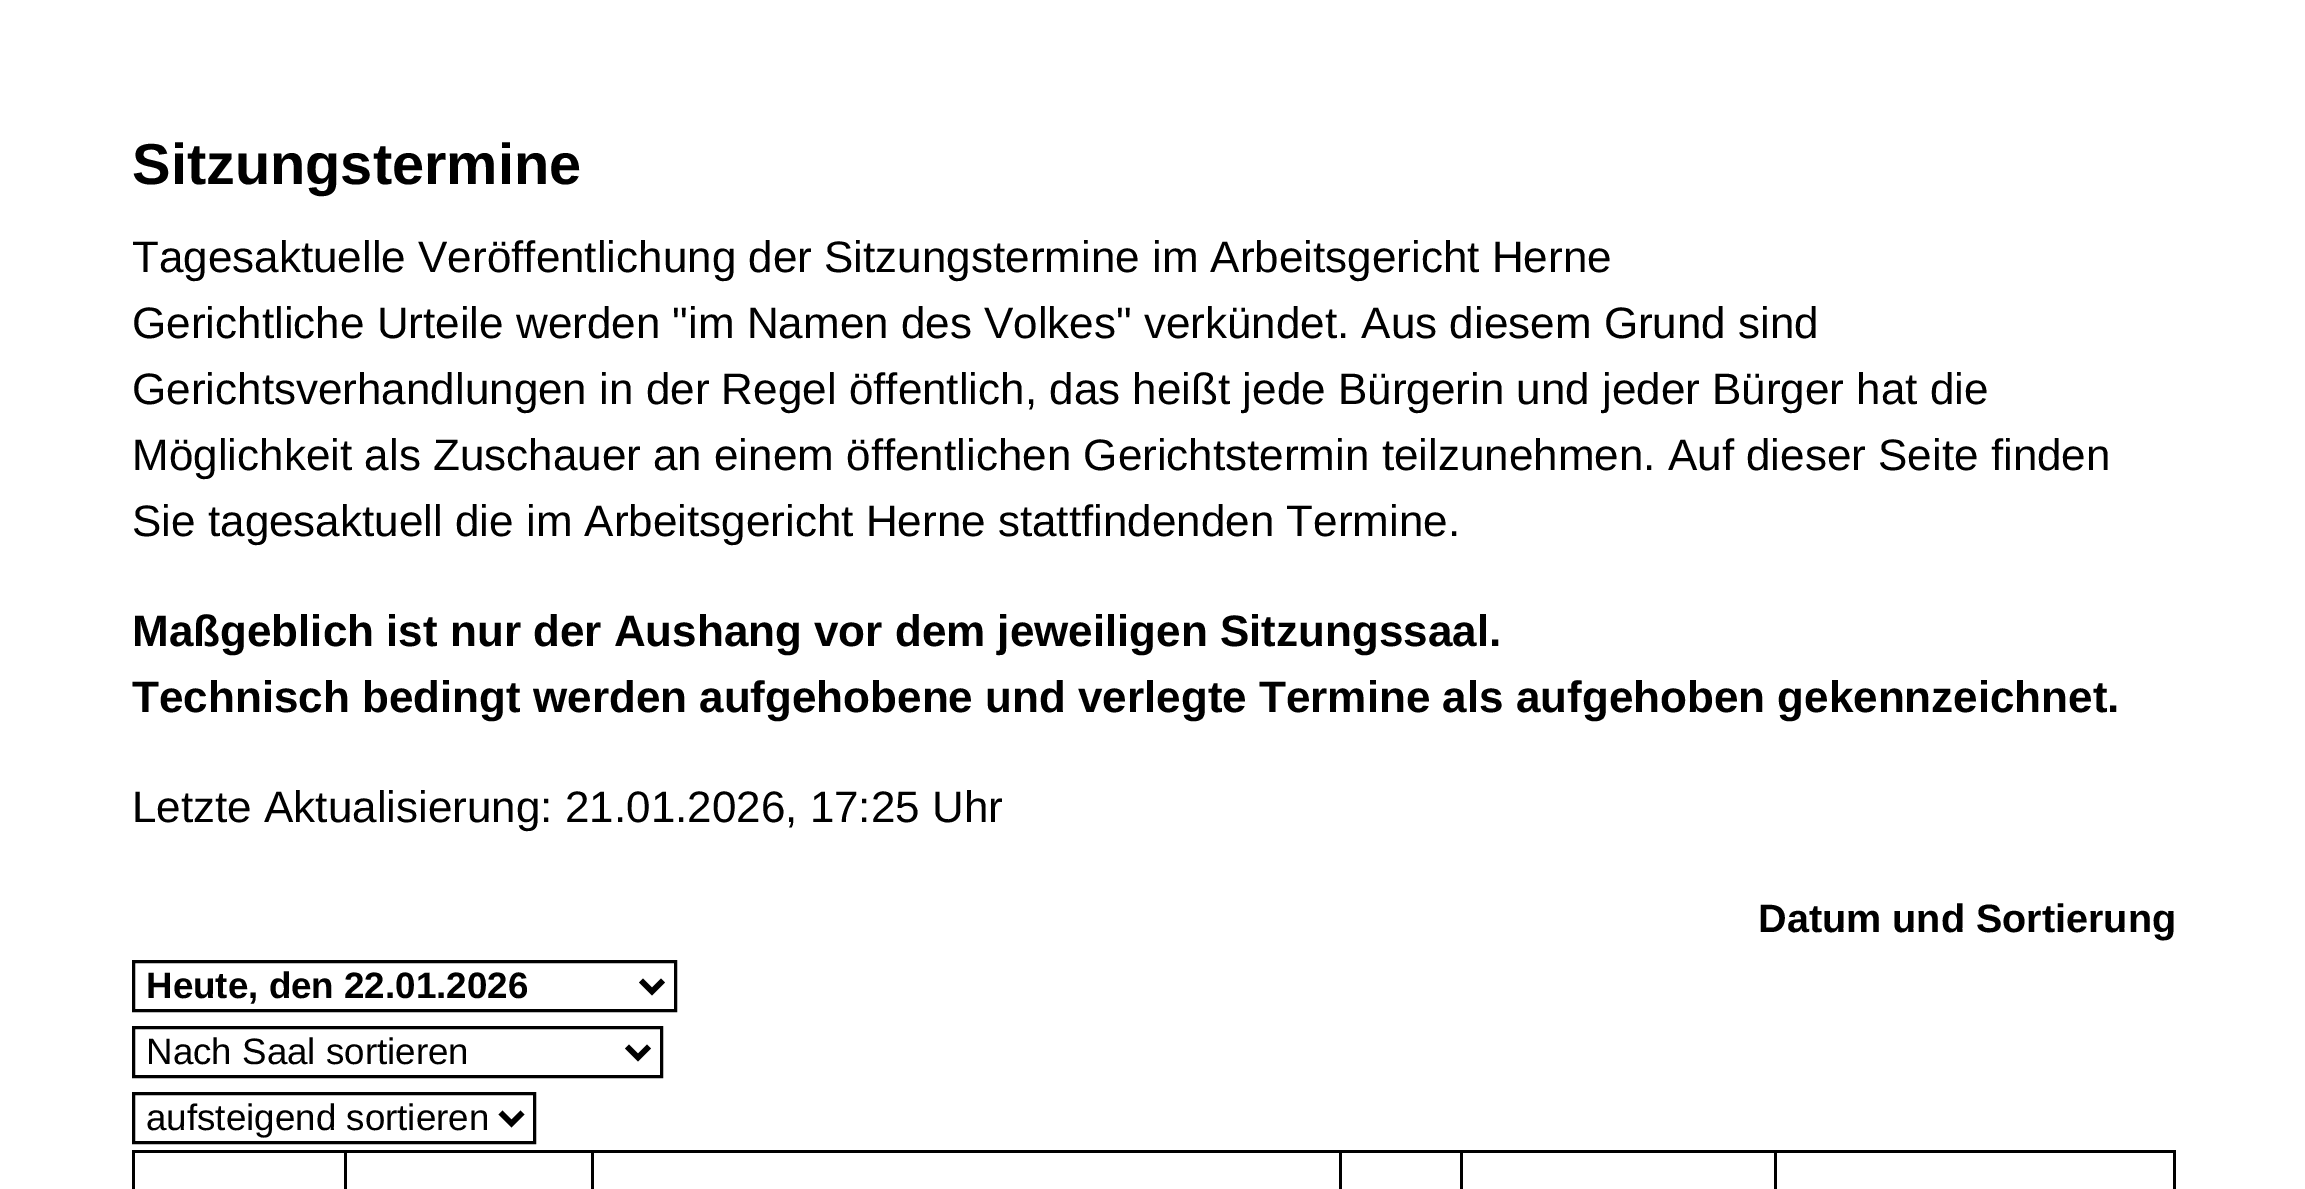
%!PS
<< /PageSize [2305 1189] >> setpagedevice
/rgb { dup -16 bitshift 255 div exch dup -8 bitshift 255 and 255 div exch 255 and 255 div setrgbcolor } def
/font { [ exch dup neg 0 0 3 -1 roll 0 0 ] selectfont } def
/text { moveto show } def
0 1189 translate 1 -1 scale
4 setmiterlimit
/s1 { /LiberationSans-Bold 57.75 font 16#000000 rgb } def
/s2 { /LiberationSans-Regular 44 font 16#000000 rgb } def
/s3 { /LiberationSans-Bold 44 font 16#000000 rgb } def
/s4 { /LiberationSans-Bold 39.6 font 16#000000 rgb } def
/s5 { /LiberationSans-Bold 36.75 font 16#000000 rgb } def
/s6 { /LiberationSans-Regular 36.75 font 16#000000 rgb } def
16#FFFFFF rgb
0 0 2305 1189 rectfill
s1
(Sitzungstermine) 132 184 text
s2
(Tagesaktuelle Veröffentlichung der Sitzungstermine im Arbeitsgericht Herne) 132 272 text
(Gerichtliche Urteile werden "im Namen des Volkes" verkündet. Aus diesem Grund sind) 132 338 text
(Gerichtsverhandlungen in der Regel öffentlich, das heißt jede Bürgerin und jeder Bürger hat die) 132 404 text
(Möglichkeit als Zuschauer an einem öffentlichen Gerichtstermin teilzunehmen. Auf dieser Seite finden) 132 470 text
(Sie tagesaktuell die im Arbeitsgericht Herne stattfindenden Termine.) 132 536 text
s3
(Maßgeblich ist nur der Aushang vor dem jeweiligen Sitzungssaal.) 132 646 text
(Technisch bedingt werden aufgehobene und verlegte Termine als aufgehoben gekennzeichnet.) 132 712 text
s2
(Letzte Aktualisierung: 21.01.2026, 17:25 Uhr) 132 822 text
s4
(Datum und Sortierung) 1758 932 text
3 setlinewidth
133.5 961.5 542 49 rectstroke
5.5 setlinewidth
641 980.5 moveto 652 991.5 lineto 663 980.5 lineto stroke
s5
(Heute, den 22.01.2026) 146 998 text
3 setlinewidth
133.5 1027.5 528 49 rectstroke
5.5 setlinewidth
627 1046.5 moveto 638 1057.5 lineto 649 1046.5 lineto stroke
s6
(Nach Saal sortieren) 146 1064 text
3 setlinewidth
133.5 1093.5 401 49 rectstroke
5.5 setlinewidth
500.5 1112.5 moveto 511.5 1123.5 lineto 522.5 1112.5 lineto stroke
(aufsteigend sortieren) 146 1130 text
132 1150 2043 3 rectfill
2173 1150 3 39 rectfill
132 1150 3 39 rectfill
344 1150 3 39 rectfill
591 1150 3 39 rectfill
1339 1150 3 39 rectfill
1460 1150 3 39 rectfill
1774 1150 3 39 rectfill
showpage
